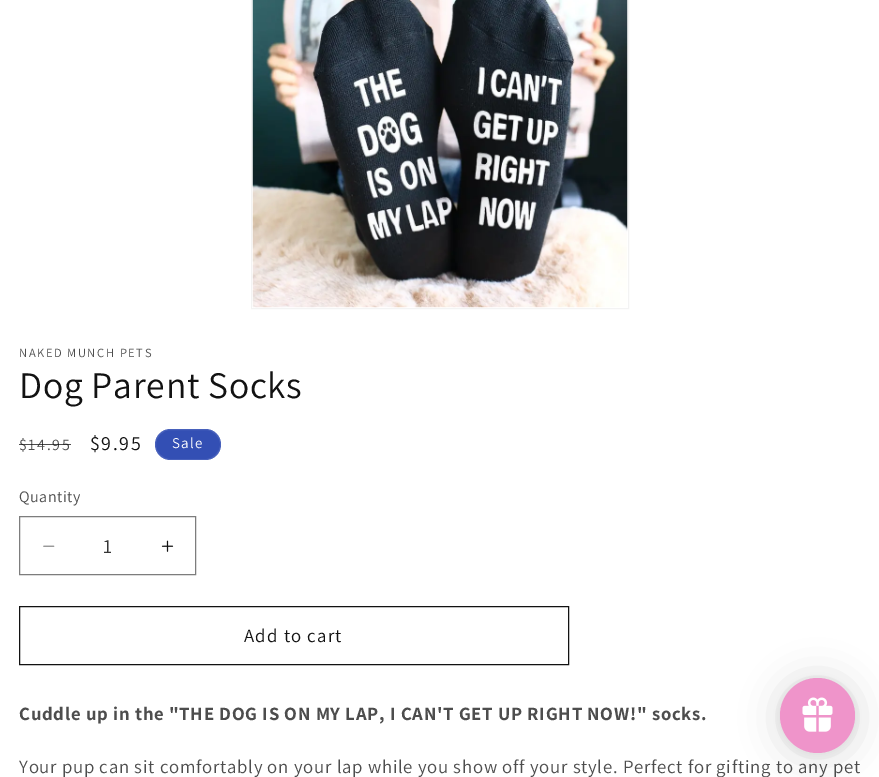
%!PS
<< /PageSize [879 777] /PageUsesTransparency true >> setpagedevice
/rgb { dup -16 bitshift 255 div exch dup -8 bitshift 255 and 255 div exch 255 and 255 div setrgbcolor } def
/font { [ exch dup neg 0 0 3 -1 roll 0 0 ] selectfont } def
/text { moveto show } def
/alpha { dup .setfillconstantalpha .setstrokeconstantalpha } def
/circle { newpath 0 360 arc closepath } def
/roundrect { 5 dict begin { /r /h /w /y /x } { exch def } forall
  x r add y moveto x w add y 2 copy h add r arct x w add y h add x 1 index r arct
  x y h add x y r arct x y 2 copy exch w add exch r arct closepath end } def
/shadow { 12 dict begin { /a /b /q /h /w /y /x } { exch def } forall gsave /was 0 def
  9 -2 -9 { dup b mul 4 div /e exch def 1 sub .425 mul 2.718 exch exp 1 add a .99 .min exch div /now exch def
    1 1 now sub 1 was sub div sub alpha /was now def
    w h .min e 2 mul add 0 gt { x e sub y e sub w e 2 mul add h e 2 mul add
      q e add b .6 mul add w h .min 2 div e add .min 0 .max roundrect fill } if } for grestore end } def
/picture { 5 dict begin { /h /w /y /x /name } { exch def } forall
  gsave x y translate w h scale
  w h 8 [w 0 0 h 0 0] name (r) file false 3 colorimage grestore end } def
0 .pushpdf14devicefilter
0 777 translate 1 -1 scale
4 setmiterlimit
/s1 { /Assistant-Regular 20 font 16#363636 rgb } def
16#FFFFFF rgb
0 0 879 777 rectfill
16#F3F3F3 rgb
251.5 -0.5 377 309 rectstroke
(pic1.raw) 252 0 376 308 picture
/Assistant-Regular 12.5 font
16#4D4D4D rgb
19 357 moveto 1.6 0 (NAKED MUNCH PETS) ashow
/Assistant-Regular 37.5 font
16#121212 rgb
19 398 moveto 0.75 0 (Dog Parent Socks) ashow
/Assistant-Regular 16 font
16#4D4D4D rgb
19 450 moveto 1.6 0 ($14.95) ashow
0.75 alpha
16#121212 rgb
19 444 52 1 rectfill
/Assistant-Regular 20 font
1 alpha
90 450 moveto 1.6 0 ($9.95) ashow
16#334FB4 rgb
155 429 66 31 15.5 roundrect fill
0.1 alpha
16#FFFFFF rgb
155.5 429.5 65 30 15 roundrect stroke
/Assistant-Regular 15 font
1 alpha
172 448 moveto 1.25 0 (Sale) ashow
/Assistant-Regular 16 font
16#4D4D4D rgb
19 502 moveto 0.5 0 (Quantity) ashow
(pic2.raw) 43 545 12 2 picture
(pic3.raw) 161 540 13 12 picture
16#7D7D7D rgb
19.5 516.5 176 58 rectstroke
s1
(1) 103 553 text
16#121212 rgb
19.5 606.5 549 58 rectstroke
/Assistant-Regular 18.75 font
244 642 moveto 1.25 0 (Add to cart) ashow
/Assistant-Bold 18.75 font
16#4D4D4D rgb
19 720 moveto 0.75 0 (Cuddle up in the "THE DOG IS ON MY LAP, I CAN'T GET UP RIGHT NOW!" socks.) ashow
/Assistant-Regular 18.75 font
19 773 moveto 0.75 0 (Your pup can sit comfortably on your lap while you show off your style. Perfect for gifting to any pet) ashow
16#000000 rgb
780 680 75 75 37.5 19 0.15 shadow
780 679 75 75 37.5 4 0.05 shadow
16#EF94CA rgb
817.5 715.5 37.5 circle fill
(pic4.raw) 802 697 31 35 picture
.poppdf14devicefilter showpage
